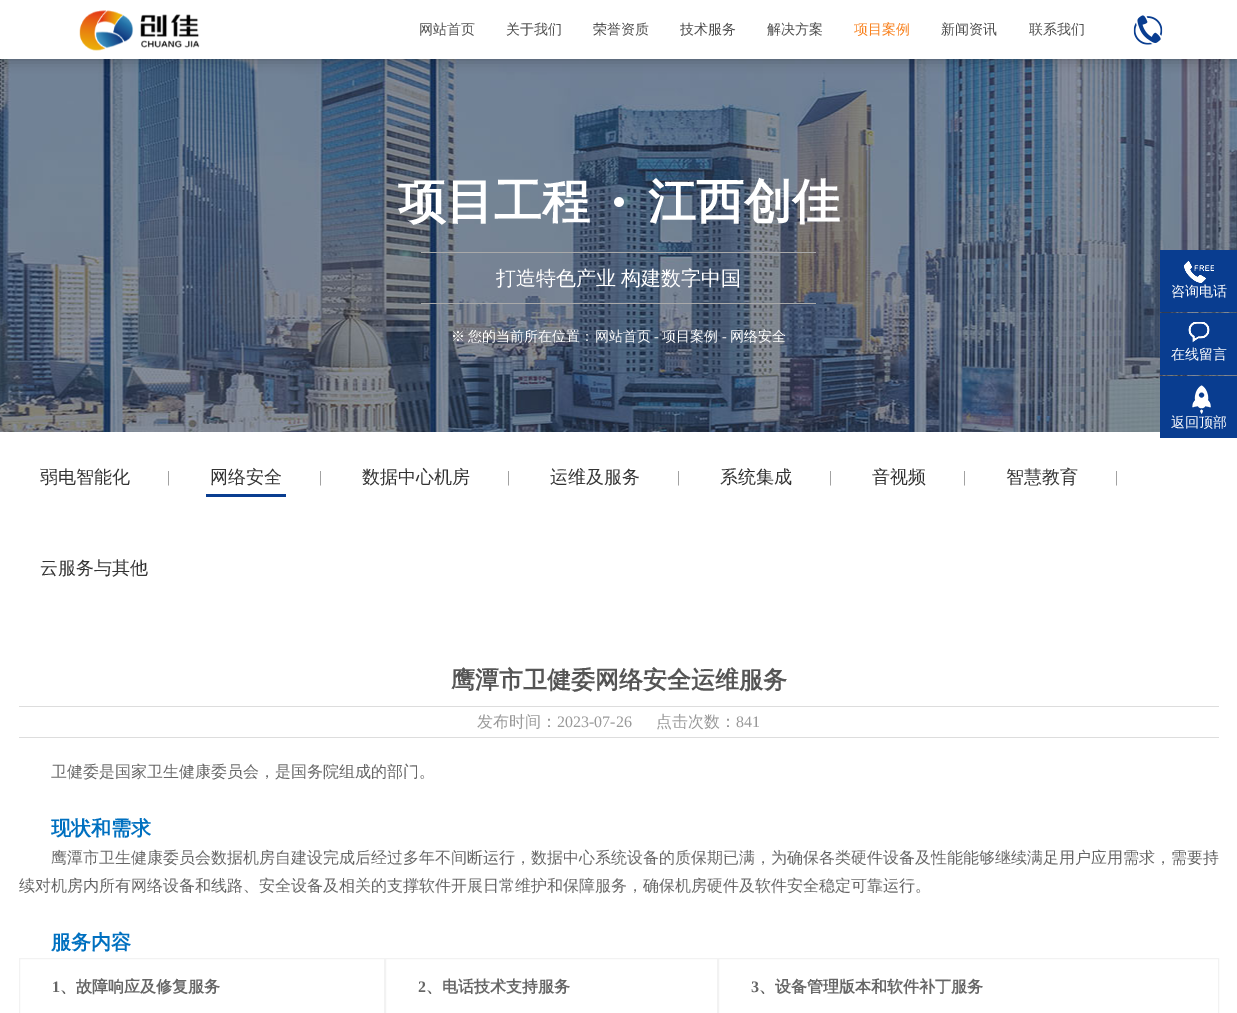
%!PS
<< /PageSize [1237 1013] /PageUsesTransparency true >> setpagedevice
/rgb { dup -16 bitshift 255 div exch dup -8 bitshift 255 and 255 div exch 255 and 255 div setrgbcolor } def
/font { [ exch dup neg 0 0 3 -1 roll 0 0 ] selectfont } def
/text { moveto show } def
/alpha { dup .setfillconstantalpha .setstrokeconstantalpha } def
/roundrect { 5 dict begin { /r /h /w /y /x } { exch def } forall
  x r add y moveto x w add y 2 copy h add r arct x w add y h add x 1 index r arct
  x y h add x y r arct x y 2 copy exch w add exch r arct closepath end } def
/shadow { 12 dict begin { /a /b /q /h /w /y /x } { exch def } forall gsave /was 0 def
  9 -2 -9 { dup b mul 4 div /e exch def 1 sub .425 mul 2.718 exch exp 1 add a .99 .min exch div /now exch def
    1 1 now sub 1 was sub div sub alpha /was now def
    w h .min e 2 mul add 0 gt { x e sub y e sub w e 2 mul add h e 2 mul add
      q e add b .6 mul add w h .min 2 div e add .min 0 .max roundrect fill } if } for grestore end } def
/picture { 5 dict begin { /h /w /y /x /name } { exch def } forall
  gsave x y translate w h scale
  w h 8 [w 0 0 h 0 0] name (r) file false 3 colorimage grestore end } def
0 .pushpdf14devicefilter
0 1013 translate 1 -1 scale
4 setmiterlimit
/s1 { /WenQuanYiZenHei-Medium 14 font 16#4D4D4D rgb } def
/s2 { /WenQuanYiZenHei-Medium 14 font 16#F8801C rgb } def
/s3 { /WenQuanYiZenHei-Bold 48 font 16#FFFFFF rgb } def
/s4 { /WenQuanYiZenHei-Medium 20 font 16#FFFFFF rgb } def
/s5 { /WenQuanYiZenHei-Medium 14 font 16#FFFFFF rgb } def
/s6 { /LiberationSerif-Regular 14 font 16#FFFFFF rgb } def
/s7 { /WenQuanYiZenHei-Medium 18 font 16#333333 rgb } def
/s8 { /LiberationSerif-Regular 16 font 16#808080 rgb } def
/s9 { /WenQuanYiZenHei-Bold 24 font 16#555555 rgb } def
/s10 { /WenQuanYiZenHei-Medium 16 font 16#999999 rgb } def
/s11 { /LiberationSerif-Regular 16 font 16#999999 rgb } def
/s12 { /WenQuanYiZenHei-Medium 16 font 16#666666 rgb } def
/s13 { /WenQuanYiZenHei-Bold 20 font 16#0070C0 rgb } def
/s14 { /LiberationSerif-Bold 16 font 16#666666 rgb } def
/s15 { /WenQuanYiZenHei-Bold 16 font 16#666666 rgb } def
16#FFFFFF rgb
0 0 1237 1013 rectfill
(pic1.raw) 0 59 1237 373 picture
16#000000 rgb
0 0 1237 59 0 6.5 0.31 shadow
16#FFFFFF rgb
0 0 1237 59 rectfill
(pic2.raw) 79 10 121 41 picture
s1
(网站首页) 419 34 text
(关于我们) 506 34 text
(荣誉资质) 593 34 text
(技术服务) 680 34 text
(解决方案) 767 34 text
s2
(项目案例) 854 34 text
s1
(新闻资讯) 941 34 text
(联系我们) 1029 34 text
(pic3.raw) 1133 15 30 30 picture
s3
(项目工程) 398 218 text
(pic4.raw) 614 197 10 10 picture
(江西创佳) 648 218 text
16#A9A9A9 rgb
421 252 395 1 rectfill
421 303 395 1 rectfill
s4
(打造特色产业) 496 285 text
(构建数字中国) 621 285 text
/WenQuanYiZenHei-Medium 14 font
451 341 moveto -1 0 32 (※ 您的当前所在位置：) widthshow
(网站首页) 595 341 text
s6
(-) 654 341 text
s5
(项目案例) 662 341 text
s6
(-) 722 341 text
s5
(网络安全) 730 341 text
16#093D90 rgb
1160 250 77 62 rectfill
(pic5.raw) 1184 261 30 22 picture
s5
(咨询电话) 1171 296 text
16#093D90 rgb
1160 313 77 62 rectfill
(pic6.raw) 1188 322 22 21 picture
s5
(在线留言) 1171 359 text
16#093D90 rgb
1160 376 77 62 rectfill
(pic7.raw) 1192 385 19 29 picture
s5
(返回顶部) 1171 427 text
s7
(弱电智能化) 40 483 text
s8
(|) 167 482 text
s7
(网络安全) 210 483 text
16#093D90 rgb
206 494 80 3 rectfill
s8
(|) 319 482 text
s7
(数据中心机房) 362 483 text
s8
(|) 507 482 text
s7
(运维及服务) 550 483 text
s8
(|) 677 482 text
s7
(系统集成) 720 483 text
s8
(|) 829 482 text
s7
(音视频) 872 483 text
s8
(|) 963 482 text
s7
(智慧教育) 1006 483 text
s8
(|) 1115 482 text
s7
(云服务与其他) 40 574 text
s9
(鹰潭市卫健委网络安全运维服务) 451 688 text
16#DDDDDD rgb
19 706 1200 1 rectfill
19 737 1200 1 rectfill
s10
(发布时间：) 477 727 text
s11
(2023-07-26) 557 727 text
s10
(点击次数：) 656 727 text
s11
(841) 736 727 text
s12
(卫健委是国家卫生健康委员会，是国务院组成的部门。) 51 777 text
s13
(现状和需求) 51 835 text
s12
(鹰潭市卫生健康委员会数据机房自建设完成后经过多年不间断运行，数据中心系统设备的质保期已满，为确保各类硬件设备及性能能够继续满足用户应用需求，需要持) 51 863 text
(续对机房内所有网络设备和线路、安全设备及相关的支撑软件开展日常维护和保障服务，确保机房硬件及软件安全稳定可靠运行。) 19 891 text
s13
(服务内容) 51 949 text
16#F2F2F2 rgb
19.5 958.5 365 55 rectstroke
s14
(1) 52 992 text
s15
(、故障响应及修复服务) 60 992 text
16#F2F2F2 rgb
385.5 958.5 332 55 rectstroke
s14
(2) 418 992 text
s15
(、电话技术支持服务) 426 992 text
16#F2F2F2 rgb
718.5 958.5 500 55 rectstroke
s14
(3) 751 992 text
s15
(、设备管理版本和软件补丁服务) 759 992 text
.poppdf14devicefilter showpage
